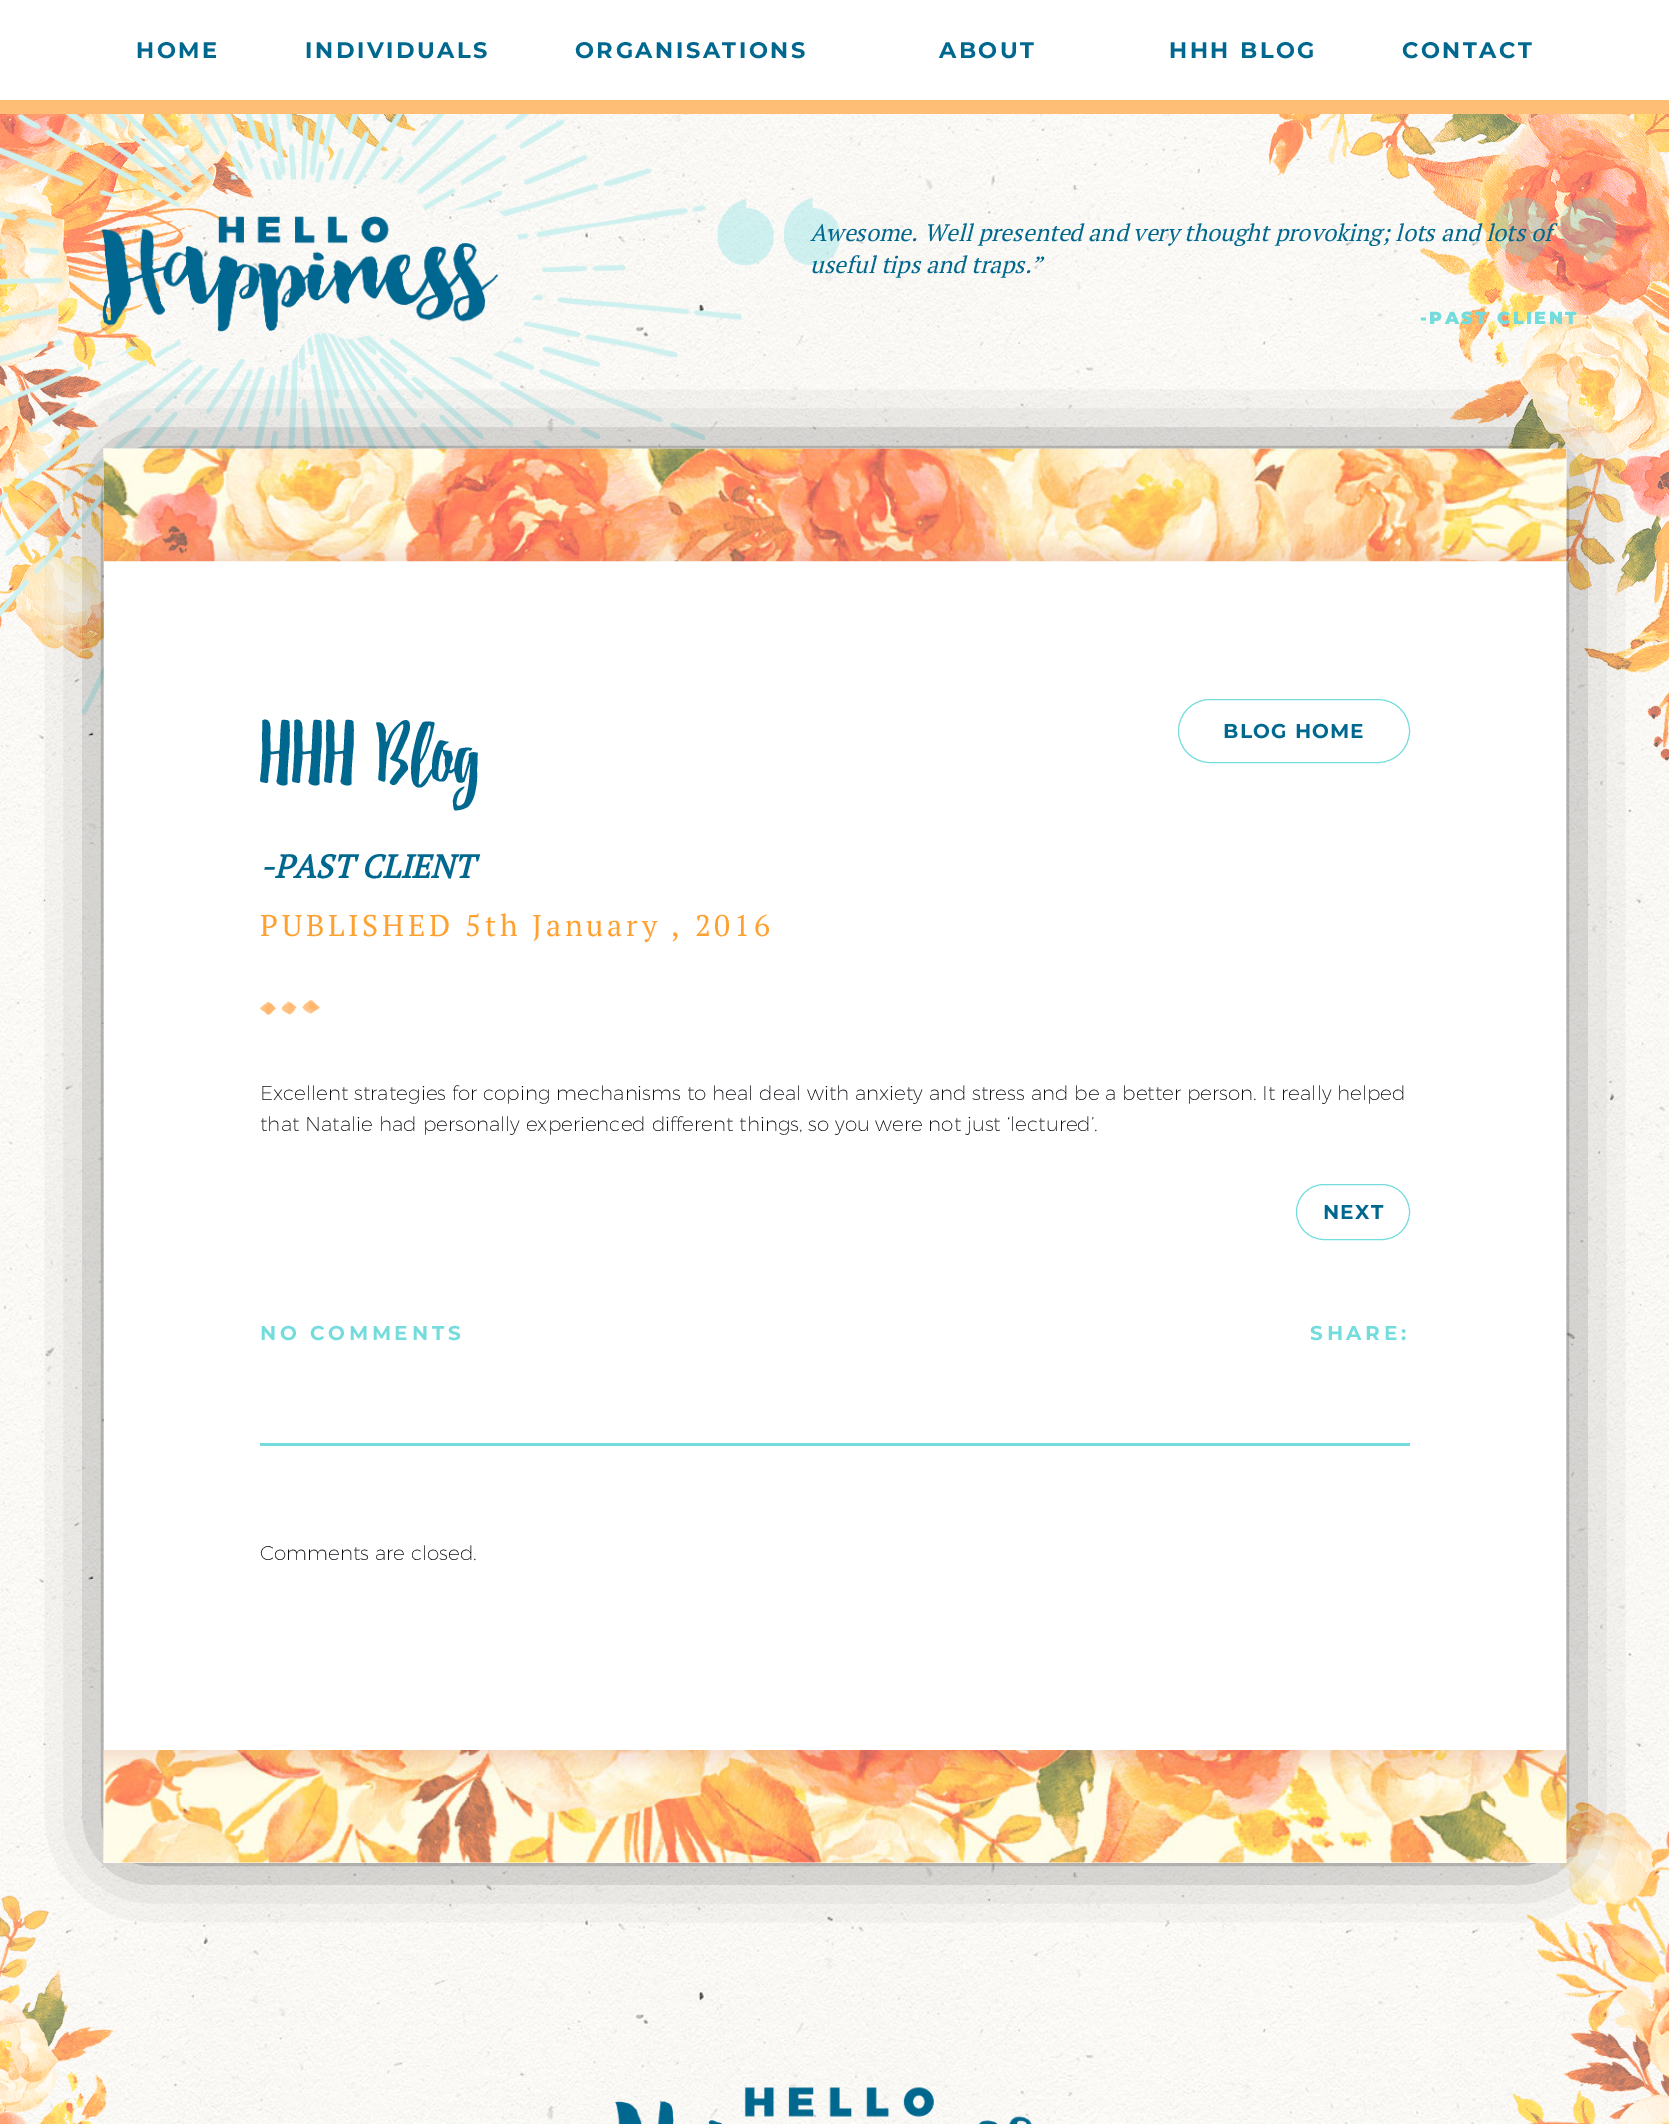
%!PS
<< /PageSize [1669 2124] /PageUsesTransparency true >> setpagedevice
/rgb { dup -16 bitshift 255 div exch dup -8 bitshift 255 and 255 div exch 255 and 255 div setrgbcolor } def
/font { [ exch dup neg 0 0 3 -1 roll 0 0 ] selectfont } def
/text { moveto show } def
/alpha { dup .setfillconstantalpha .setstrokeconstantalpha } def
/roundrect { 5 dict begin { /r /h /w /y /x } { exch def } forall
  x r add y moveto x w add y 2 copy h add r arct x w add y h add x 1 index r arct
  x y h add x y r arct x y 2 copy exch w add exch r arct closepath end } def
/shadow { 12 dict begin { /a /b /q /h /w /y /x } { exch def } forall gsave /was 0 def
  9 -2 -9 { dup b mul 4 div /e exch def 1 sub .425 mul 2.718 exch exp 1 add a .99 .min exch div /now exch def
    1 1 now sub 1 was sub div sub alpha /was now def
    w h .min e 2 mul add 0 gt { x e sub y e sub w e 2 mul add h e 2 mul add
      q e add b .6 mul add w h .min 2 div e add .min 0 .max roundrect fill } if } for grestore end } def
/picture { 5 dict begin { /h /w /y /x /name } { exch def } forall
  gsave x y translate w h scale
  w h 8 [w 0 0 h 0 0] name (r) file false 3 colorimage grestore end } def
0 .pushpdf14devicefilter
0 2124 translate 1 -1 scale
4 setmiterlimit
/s1 { /PTSerif-Italic 23.75 font 16#00688E rgb } def
/s2 { /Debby-Regular 89 font 16#00688E rgb } def
/s3 { /PTSerif-BoldItalic 32.5 font 16#00688E rgb } def
/s4 { /Montserrat-ExtraLight 20 font 16#0F1115 rgb } def
16#FFFFFF rgb
0 0 1669 2124 rectfill
(pic1.raw) 0 114 1669 2010 picture
16#FFBE76 rgb
0 100 1669 14 rectfill
/Montserrat-Bold 22.5 font
16#00688E rgb
136 58 moveto 2.5 0 (HOME) ashow
305 58 moveto 2.5 0 (INDIVIDUALS) ashow
575 58 moveto 2.5 0 (ORGANISATIONS) ashow
939 58 moveto 2.5 0 (ABOUT) ashow
1169 58 moveto 2.5 0 (HHH BLOG) ashow
1402 58 moveto 2.5 0 (CONTACT) ashow
(pic2.raw) 0 114 417 546 picture
(pic3.raw) 1268 114 401 647 picture
(pic4.raw) 0 114 742 602 picture
(pic5.raw) 717 197 900 68 picture
s1
(Awesome. Well presented and very thought provoking; lots and lots of) 810 241 text
(useful tips and traps.”) 810 273 text
/Montserrat-Black 17.5 font
16#75DCDD rgb
1420 324 moveto 2.5 0 (-PAST CLIENT) ashow
(pic8.raw) 0 1895 114 229 picture
(pic10.raw) 1512 1801 157 323 picture
16#000000 rgb
129 474 1412 1364 0 37.5 1 shadow
16#FFFFFF rgb
104 561 1462 1302 rectfill
(pic6.raw) 103 448 1464 1415 picture
s2
(HHH Blog) 260 779 text
16#75DCDD rgb
1178.5 699.5 231 63 31.5 roundrect stroke
/Montserrat-Bold 20 font
16#00688E rgb
1223 738 moveto 1.25 0 (BLOG HOME) ashow
s3
(-PAST CLIENT) 260 878 text
/PTSerif-Regular 30 font
16#FFA131 rgb
260 936 moveto 3.75 0 (PUBLISHED 5th January , 2016) ashow
(pic7.raw) 260 1000 60 15 picture
s4
(Excellent strategies for coping mechanisms to heal deal with anxiety and stress and be a better person. It really helped) 260 1100 text
(that Natalie had personally experienced different things, so you were not just ‘lectured’.) 260 1131 text
16#75DCDD rgb
1296.5 1184.5 113 55 27.5 roundrect stroke
/Montserrat-Bold 20 font
16#00688E rgb
1323 1219 moveto 1.25 0 (NEXT) ashow
16#75DCDD rgb
260 1443 1150 3 rectfill
260 1340 moveto 3.75 0 (NO COMMENTS) ashow
1310 1340 moveto 3.75 0 (SHARE:) ashow
s4
(Comments are closed.) 260 1560 text
(pic9.raw) 615 2087 417 37 picture
.poppdf14devicefilter showpage
